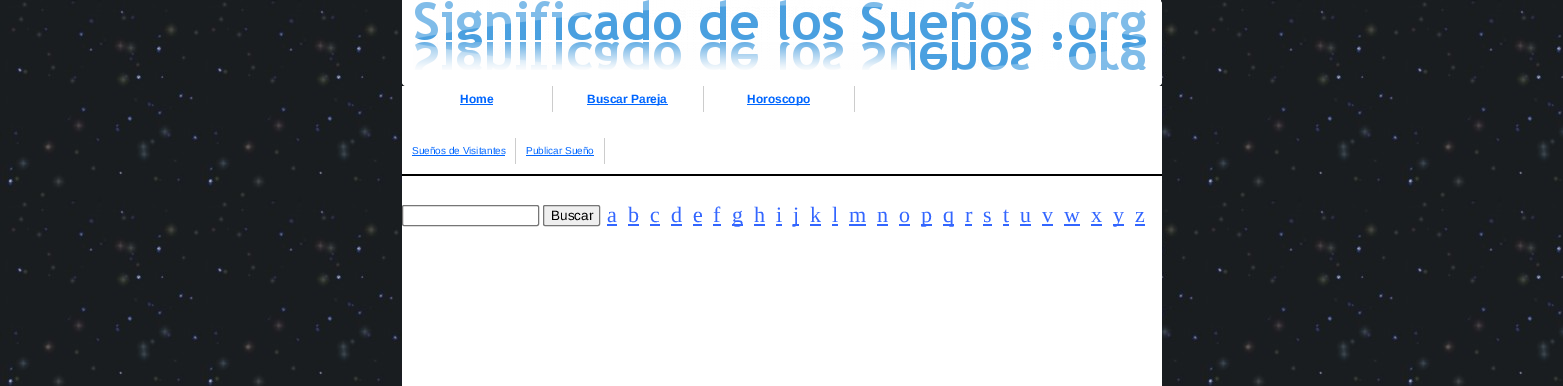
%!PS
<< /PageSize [1563 386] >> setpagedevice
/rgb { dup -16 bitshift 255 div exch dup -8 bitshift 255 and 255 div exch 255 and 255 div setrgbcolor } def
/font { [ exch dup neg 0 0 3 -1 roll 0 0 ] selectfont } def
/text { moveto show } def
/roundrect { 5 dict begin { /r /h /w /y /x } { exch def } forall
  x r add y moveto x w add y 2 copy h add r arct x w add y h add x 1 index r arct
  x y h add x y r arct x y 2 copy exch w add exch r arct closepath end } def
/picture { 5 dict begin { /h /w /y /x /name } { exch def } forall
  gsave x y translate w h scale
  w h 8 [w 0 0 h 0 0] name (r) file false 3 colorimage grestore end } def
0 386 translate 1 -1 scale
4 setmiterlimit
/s1 { /LiberationSans-Bold 12 font 16#0066FF rgb } def
/s2 { /LiberationSans-Regular 10 font 16#0066FF rgb } def
/s3 { /LiberationSans-Regular 13.5 font 16#000000 rgb } def
/s4 { /LiberationSerif-Regular 22 font 16#3366FF rgb } def
16#FFFFFF rgb
0 0 1563 386 rectfill
(pic1.raw) 0 0 1563 386 picture
402 0 760 86 4 roundrect fill
(pic2.raw) 402 0 759 70 picture
402 86 760 300 rectfill
16#CCCCCC rgb
552 86 1 26 rectfill
s1
(Home) 460 103 text
460 104 33 1 rectfill
16#CCCCCC rgb
703 86 1 26 rectfill
16#0066FF rgb
587 104 81 1 rectfill
(Buscar Pareja) 587 103 text
16#CCCCCC rgb
854 86 1 26 rectfill
16#0066FF rgb
747 104 63 1 rectfill
(Horoscopo) 747 103 text
16#CCCCCC rgb
515 138 1 26 rectfill
s2
(Sueños de Visitantes) 412 154 text
412 155 93 1 rectfill
16#CCCCCC rgb
604 138 1 26 rectfill
s2
(Publicar Sueño) 526 154 text
526 155 68 1 rectfill
16#000000 rgb
402 174 760 2 rectfill
16#767676 rgb
402.5 205.5 136 20 1.5 roundrect stroke
16#EFEFEF rgb
543.5 205.5 56 20 1.5 roundrect gsave fill grestore
16#767676 rgb
stroke
s3
(Buscar) 551 220 text
s4
(a) 607 222 text
607 224 10 2 rectfill
(b) 628 222 text
628 224 11 2 rectfill
(c) 650 222 text
650 224 10 2 rectfill
(d) 671 222 text
671 224 11 2 rectfill
(e) 693 222 text
693 224 9 2 rectfill
(f) 713 222 text
713 224 8 2 rectfill
732 224 11 2 rectfill
(g) 732 222 text
(h) 754 222 text
754 224 11 2 rectfill
(i) 776 222 text
776 224 6 2 rectfill
793 224 6 2 rectfill
(j) 793 222 text
(k) 810 222 text
810 224 11 2 rectfill
(l) 832 222 text
832 224 6 2 rectfill
(m) 849 222 text
849 224 17 2 rectfill
(n) 877 222 text
877 224 11 2 rectfill
(o) 899 222 text
899 224 11 2 rectfill
921 224 11 2 rectfill
(p) 921 222 text
943 224 11 2 rectfill
(q) 943 222 text
(r) 965 222 text
965 224 7 2 rectfill
(s) 983 222 text
983 224 9 2 rectfill
(t) 1003 222 text
1003 224 6 2 rectfill
(u) 1020 222 text
1020 224 11 2 rectfill
(v) 1042 222 text
1042 224 11 2 rectfill
(w) 1064 222 text
1064 224 16 2 rectfill
(x) 1091 222 text
1091 224 11 2 rectfill
1113 224 11 2 rectfill
(y) 1113 222 text
(z) 1135 222 text
1135 224 10 2 rectfill
showpage
